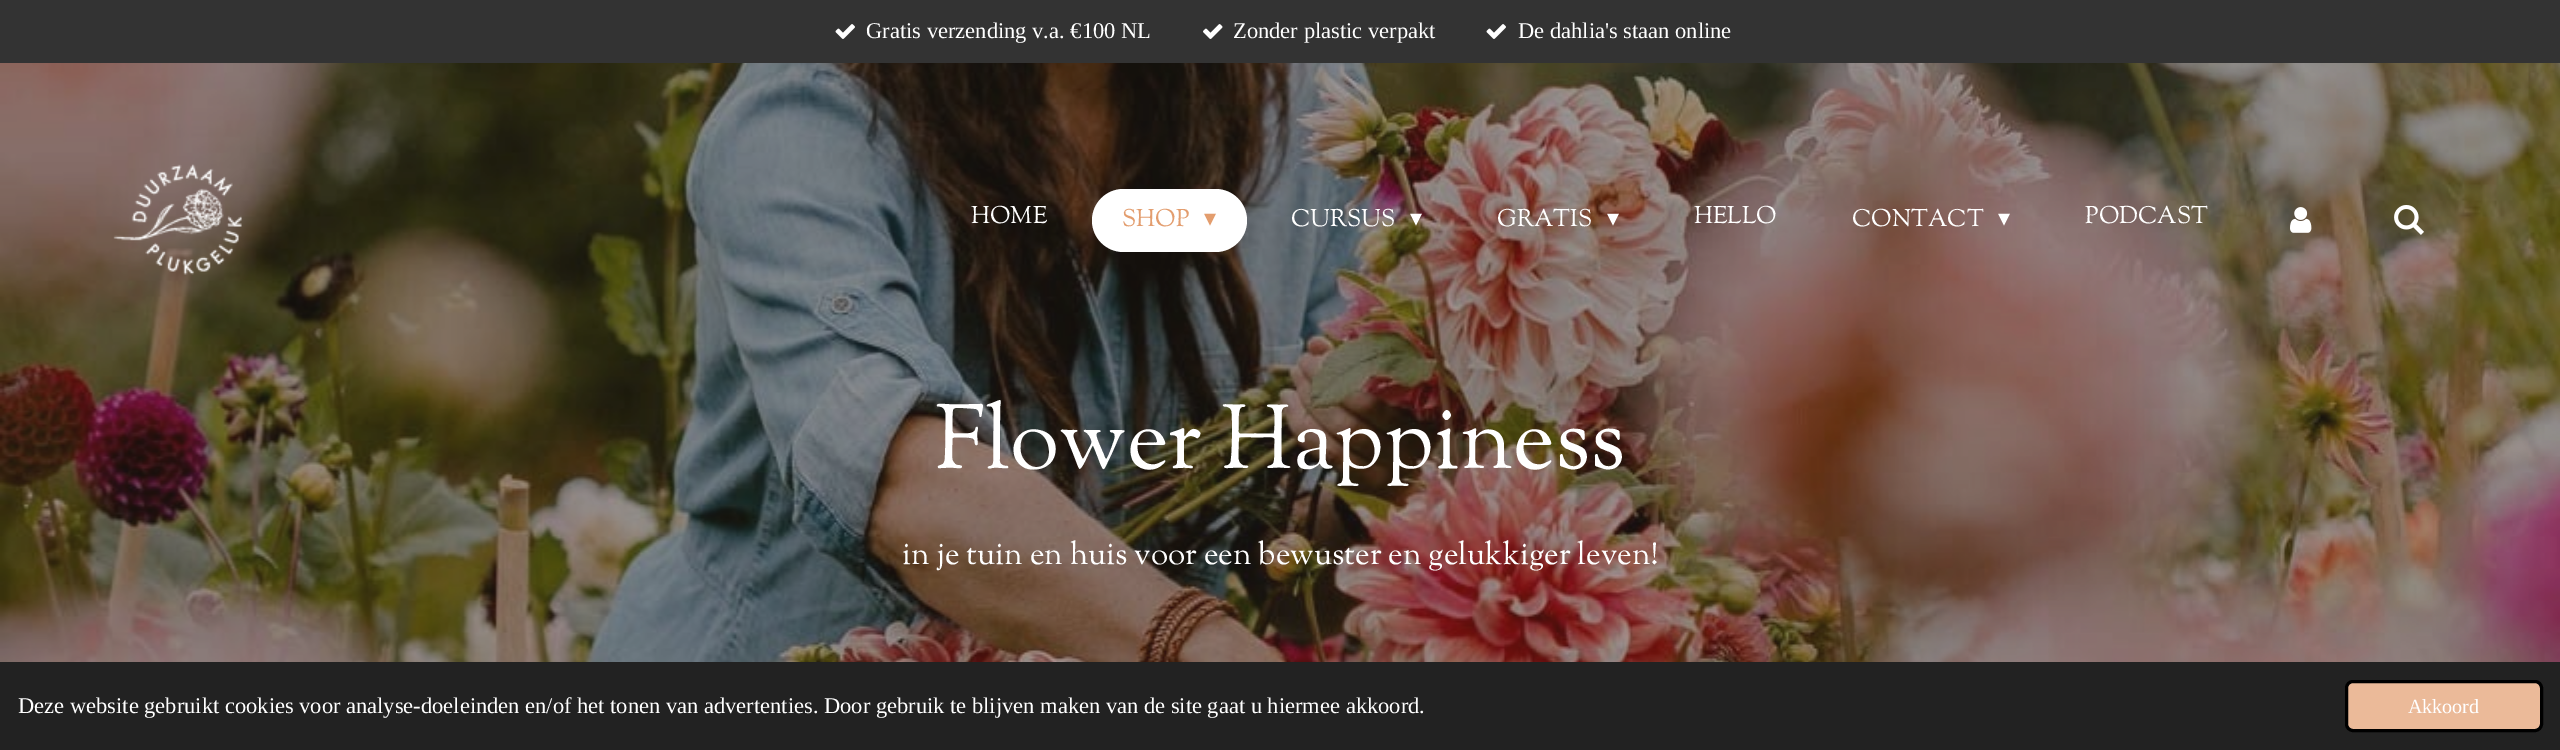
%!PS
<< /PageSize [2560 750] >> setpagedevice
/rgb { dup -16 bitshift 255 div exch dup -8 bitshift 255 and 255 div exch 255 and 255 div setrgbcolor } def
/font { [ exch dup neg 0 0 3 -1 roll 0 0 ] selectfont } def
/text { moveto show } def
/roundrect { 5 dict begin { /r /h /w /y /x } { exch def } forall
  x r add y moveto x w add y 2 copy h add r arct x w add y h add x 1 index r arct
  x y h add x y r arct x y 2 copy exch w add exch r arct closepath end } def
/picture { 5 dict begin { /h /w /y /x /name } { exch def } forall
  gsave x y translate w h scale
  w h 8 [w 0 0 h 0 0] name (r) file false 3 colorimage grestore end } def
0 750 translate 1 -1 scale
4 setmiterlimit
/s1 { /LiberationSerif-Regular 22.5 font 16#FFFFFF rgb } def
/s2 { /SortsMillGoudy-Regular 24 font 16#FFFFFF rgb } def
/s3 { /SortsMillGoudy-Regular 24 font 16#E39D6E rgb } def
/s4 { /DejaVuSans-Regular 24 font 16#E39D6E rgb } def
/s5 { /DejaVuSans-Regular 24 font 16#FFFFFF rgb } def
/s6 { /SortsMillGoudy-Regular 90 font 16#FFFFFF rgb } def
/s7 { /SortsMillGoudy-Regular 31.5 font 16#FFFFFF rgb } def
/s8 { /LiberationSerif-Regular 20 font 16#FFFFFF rgb } def
16#FFFFFF rgb
0 0 2560 750 rectfill
16#333333 rgb
0 0 2560 63 rectfill
(pic1.raw) 835 24 20 15 picture
s1
(Gratis verzending v.a. €100 NL) 866 38 text
(pic2.raw) 1203 24 20 15 picture
(Zonder plastic verpakt) 1233 38 text
(pic1.raw) 1486 24 20 15 picture
(De dahlia's staan online) 1518 38 text
(pic6.raw) 0 63 2560 599 picture
(pic3.raw) 113 164 129 111 picture
s2
(HOME) 971 223 text
1092 189 155 63 31.5 roundrect fill
s3
(SHOP) 1122 226 text
s4
(▾) 1204 226 text
s2
(CURSUS) 1291 226 text
s5
(▾) 1410 226 text
s2
(GRATIS) 1497 226 text
s5
(▾) 1607 226 text
s2
(HELLO) 1694 223 text
(CONTACT) 1852 226 text
s5
(▾) 1998 226 text
s2
(PODCAST) 2085 223 text
(pic4.raw) 2290 207 22 26 picture
(pic5.raw) 2394 205 30 30 picture
s6
(Flower Happiness) 935 468 text
s7
(in je tuin en huis voor een bewuster en gelukkiger leven!) 902 564 text
16#222222 rgb
0 662 2560 88 rectfill
s1
(Deze website gebruikt cookies voor analyse-doeleinden en/of het tonen van advertenties. Door gebruik te blijven maken van de site gaat u hiermee akkoord.) 18 713 text
16#EBBA99 rgb
2346.5 681.5 195 49 6.5 roundrect gsave fill grestore
16#000000 rgb
3 setlinewidth
stroke
s8
(Akkoord) 2408 713 text
showpage
